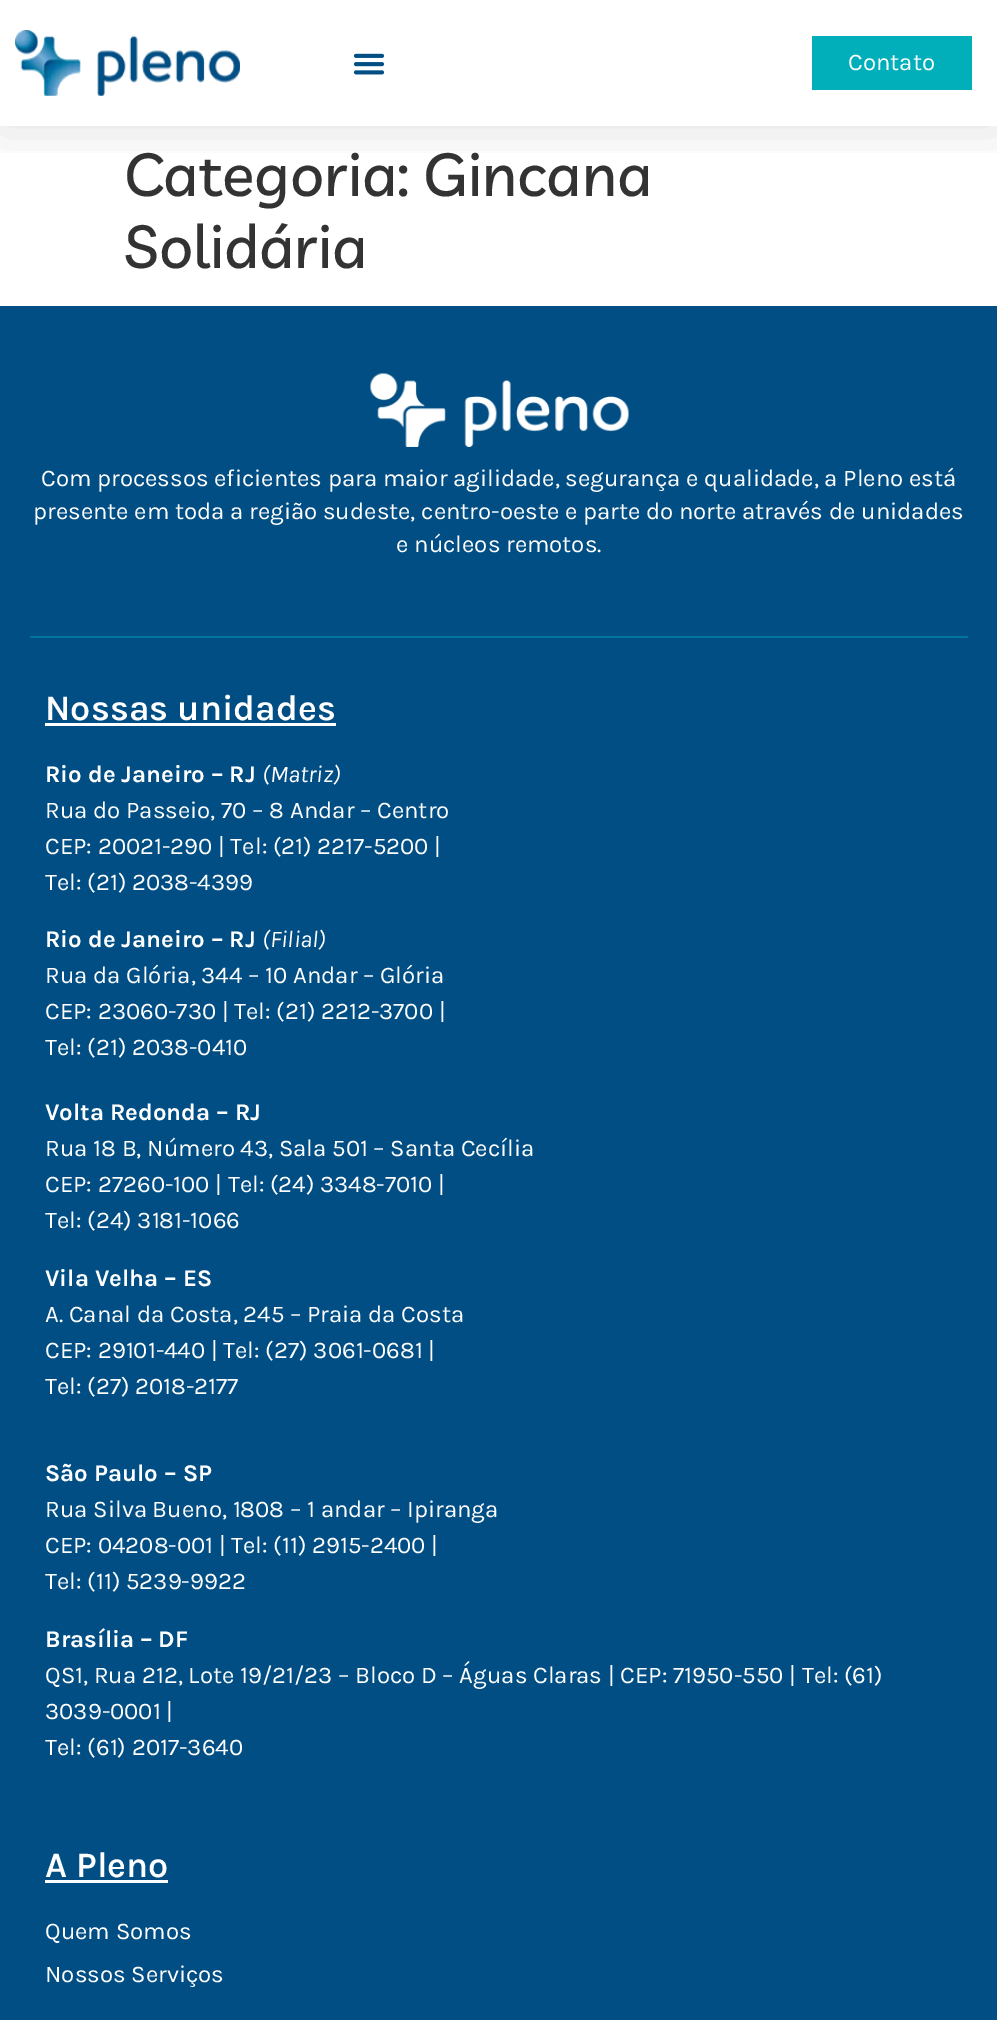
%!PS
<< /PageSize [997 2020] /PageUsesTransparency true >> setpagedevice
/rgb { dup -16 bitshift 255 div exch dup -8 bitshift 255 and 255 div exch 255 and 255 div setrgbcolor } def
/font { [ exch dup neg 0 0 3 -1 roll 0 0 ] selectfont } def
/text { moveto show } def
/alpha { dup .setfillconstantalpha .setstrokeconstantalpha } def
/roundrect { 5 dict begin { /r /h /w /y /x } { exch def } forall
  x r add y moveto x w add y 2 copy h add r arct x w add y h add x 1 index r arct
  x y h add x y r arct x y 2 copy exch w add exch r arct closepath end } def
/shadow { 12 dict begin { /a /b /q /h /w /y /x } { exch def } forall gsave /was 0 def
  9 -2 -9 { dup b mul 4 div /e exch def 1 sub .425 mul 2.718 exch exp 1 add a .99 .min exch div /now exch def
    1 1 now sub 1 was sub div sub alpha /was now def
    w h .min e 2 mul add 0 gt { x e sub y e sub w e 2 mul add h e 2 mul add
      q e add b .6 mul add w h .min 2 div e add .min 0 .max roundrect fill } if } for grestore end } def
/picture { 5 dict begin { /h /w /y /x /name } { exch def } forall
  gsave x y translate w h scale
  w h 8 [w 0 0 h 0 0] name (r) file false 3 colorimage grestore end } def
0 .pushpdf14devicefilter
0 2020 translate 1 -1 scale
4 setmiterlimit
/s1 { /Karla-Regular 24 font 16#FFFFFF rgb } def
/s2 { /Livvic-Medium 60 font 16#333333 rgb } def
/s3 { /Karla-SemiBold 36 font 16#FFFFFF rgb } def
/s4 { /Karla-Bold 24 font 16#FFFFFF rgb } def
/s5 { /Karla-Italic 24 font 16#FFFFFF rgb } def
16#FFFFFF rgb
0 0 997 2020 rectfill
gsave
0 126 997 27 rectclip
16#000000 rgb
0 8 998 126 0 22.5 0.1 shadow
grestore
(pic1.raw) 15 30 225 66 picture
(pic2.raw) 353 53 32 22 picture
16#00AFB9 rgb
812 36 160 54 rectfill
s1
(Contato) 848 70 text
s2
(Categoria: Gincana) 124 196 text
(Solidária) 124 268 text
16#004E84 rgb
0 306 997 1714 rectfill
(pic3.raw) 370 373 259 74 picture
s1
(Com processos eficientes para maior agilidade, segurança e qualidade, a Pleno está) 41 486 text
(presente em toda a região sudeste, centro-oeste e parte do norte através de unidades) 33 519 text
(e núcleos remotos.) 396 552 text
16#007599 rgb
30 636 938 2 rectfill
s3
(Nossas unidades) 45 720 text
45 723 291 3 rectfill
s4
(Rio de Janeiro – RJ) 45 782 text
s5
(\(Matriz\)) 262 782 text
s1
(Rua do Passeio, 70 – 8 Andar – Centro) 45 818 text
(CEP: 20021-290 | Tel: \(21\) 2217-5200 |) 45 854 text
(Tel: \(21\) 2038-4399) 45 890 text
s4
(Rio de Janeiro – RJ) 45 947 text
s5
(\(Filial\)) 262 947 text
s1
(Rua da Glória, 344 – 10 Andar – Glória) 45 983 text
(CEP: 23060-730 | Tel: \(21\) 2212-3700 |) 45 1019 text
(Tel: \(21\) 2038-0410) 45 1055 text
s4
(Volta Redonda – RJ) 45 1120 text
s1
(Rua 18 B, Número 43, Sala 501 – Santa Cecília) 45 1156 text
(CEP: 27260-100 | Tel: \(24\) 3348-7010 |) 45 1192 text
(Tel: \(24\) 3181-1066) 45 1228 text
s4
(Vila Velha – ES) 45 1286 text
s1
(A. Canal da Costa, 245 – Praia da Costa) 45 1322 text
(CEP: 29101-440 | Tel: \(27\) 3061-0681 |) 45 1358 text
(Tel: \(27\) 2018-2177) 45 1394 text
s4
(São Paulo – SP) 45 1481 text
s1
(Rua Silva Bueno, 1808 – 1 andar – Ipiranga) 45 1517 text
(CEP: 04208-001 | Tel: \(11\) 2915-2400 |) 45 1553 text
(Tel: \(11\) 5239-9922) 45 1589 text
s4
(Brasília – DF) 45 1647 text
s1
(QS1, Rua 212, Lote 19/21/23 – Bloco D – Águas Claras | CEP: 71950-550 | Tel: \(61\)) 45 1683 text
(3039-0001 |) 45 1719 text
(Tel: \(61\) 2017-3640) 45 1755 text
s3
(A Pleno) 45 1877 text
45 1880 123 3 rectfill
s1
(Quem Somos) 45 1939 text
(Nossos Serviços) 45 1982 text
.poppdf14devicefilter showpage
